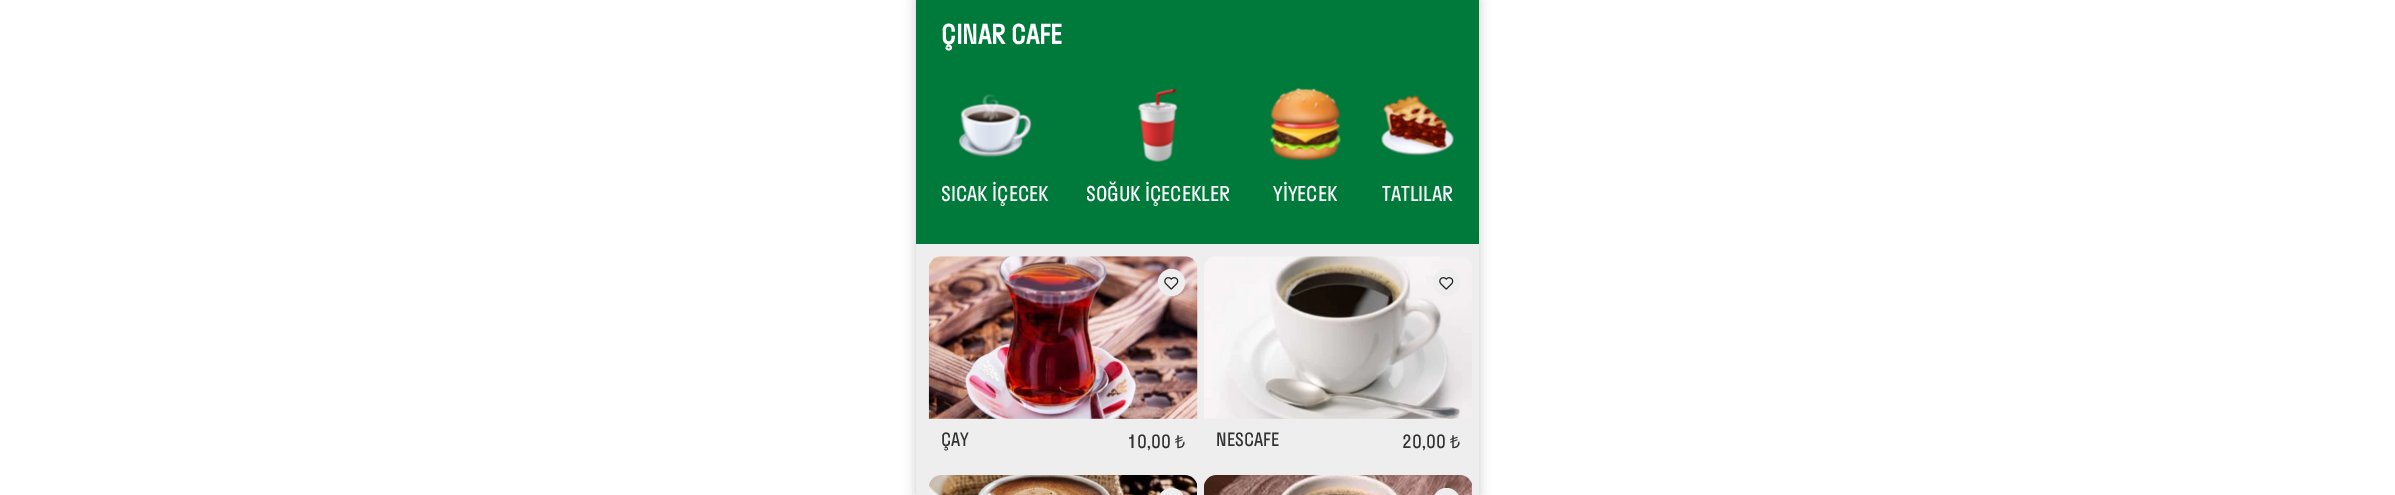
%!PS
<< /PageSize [2395 495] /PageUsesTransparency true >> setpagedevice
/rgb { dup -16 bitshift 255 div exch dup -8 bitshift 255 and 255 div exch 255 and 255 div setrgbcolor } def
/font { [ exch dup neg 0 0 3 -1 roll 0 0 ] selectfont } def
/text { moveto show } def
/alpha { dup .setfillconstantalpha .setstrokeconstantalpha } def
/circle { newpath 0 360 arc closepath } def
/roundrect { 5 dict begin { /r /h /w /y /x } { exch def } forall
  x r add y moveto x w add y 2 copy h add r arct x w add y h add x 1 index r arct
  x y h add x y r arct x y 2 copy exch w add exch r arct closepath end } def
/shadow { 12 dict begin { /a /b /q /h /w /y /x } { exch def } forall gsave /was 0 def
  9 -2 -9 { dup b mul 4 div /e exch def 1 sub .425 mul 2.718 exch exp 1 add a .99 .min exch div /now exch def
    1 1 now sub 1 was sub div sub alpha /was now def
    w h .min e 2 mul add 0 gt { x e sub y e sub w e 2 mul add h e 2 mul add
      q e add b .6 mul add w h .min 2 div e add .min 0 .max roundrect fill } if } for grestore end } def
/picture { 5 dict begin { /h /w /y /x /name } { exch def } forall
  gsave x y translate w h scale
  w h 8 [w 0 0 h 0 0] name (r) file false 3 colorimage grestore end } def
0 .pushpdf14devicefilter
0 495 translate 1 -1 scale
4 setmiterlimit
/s1 { /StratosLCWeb-Bold 26 font 16#FFFFFF rgb } def
/s2 { /StratosLCWeb-Regular 20 font 16#FFFFFF rgb } def
/s3 { /StratosLCWeb-Regular 18 font 16#333333 rgb } def
/s4 { /NotoSans-Regular 18 font 16#333333 rgb } def
16#FFFFFF rgb
0 0 2395 495 rectfill
16#000000 rgb
916 0 563 495 0 6 0.2 shadow
16#007A3B rgb
916 0 563 244 rectfill
s1
(ÇINAR CAFE) 941 44 text
(pic1.raw) 958 94 74 64 picture
s2
(SICAK İÇECEK) 941 201 text
(pic2.raw) 1137 88 41 74 picture
(SOĞUK İÇECEKLER) 1086 201 text
(pic3.raw) 1269 88 72 73 picture
(YİYECEK) 1273 201 text
(pic4.raw) 1381 95 73 61 picture
(TATLILAR) 1382 201 text
16#EEEEEE rgb
916 244 563 251 rectfill
(pic5.raw) 928 256 270 163 picture
1171.5 282.5 13.5 circle fill
(pic6.raw) 1164 277 15 13 picture
s3
(ÇAY) 941 446 text
(10,00) 1127 448 text
s4
(₺) 1175 448 text
(pic7.raw) 1204 256 268 163 picture
16#EEEEEE rgb
1446.5 282.5 13.5 circle fill
(pic6.raw) 1439 277 15 13 picture
s3
(NESCAFE) 1216 446 text
(20,00) 1402 448 text
s4
(₺) 1450 448 text
(pic8.raw) 929 475 268 20 picture
16#EEEEEE rgb
1171.5 488 moveto 1179 488 1185 494 1185 501.5 curveto 1185 495 lineto 1158 495 lineto 1158 501.5 lineto 1158 494 1164 488 1171.5 488 curveto closepath fill
(pic9.raw) 1204 475 268 20 picture
1446.5 488 moveto 1454 488 1460 494 1460 501.5 curveto 1460 495 lineto 1433 495 lineto 1433 501.5 lineto 1433 494 1439 488 1446.5 488 curveto closepath fill
.poppdf14devicefilter showpage
